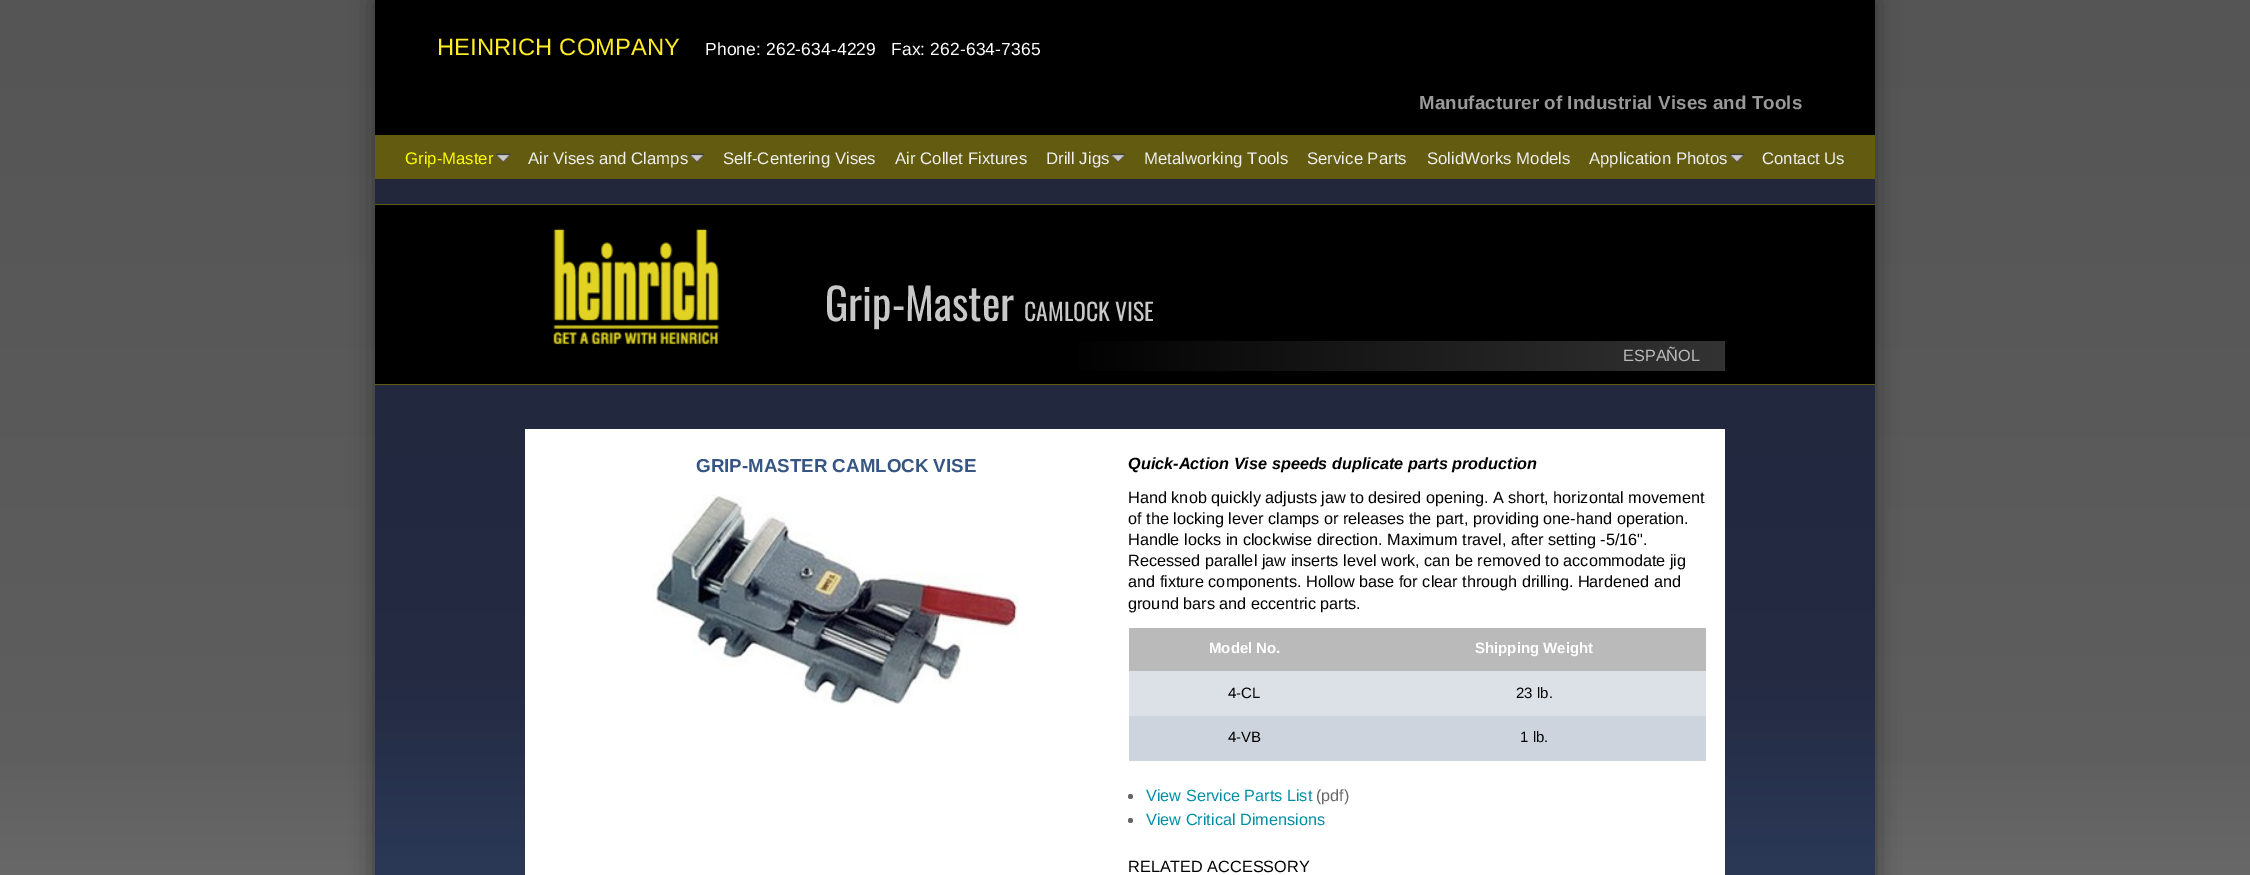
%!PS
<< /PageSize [2250 875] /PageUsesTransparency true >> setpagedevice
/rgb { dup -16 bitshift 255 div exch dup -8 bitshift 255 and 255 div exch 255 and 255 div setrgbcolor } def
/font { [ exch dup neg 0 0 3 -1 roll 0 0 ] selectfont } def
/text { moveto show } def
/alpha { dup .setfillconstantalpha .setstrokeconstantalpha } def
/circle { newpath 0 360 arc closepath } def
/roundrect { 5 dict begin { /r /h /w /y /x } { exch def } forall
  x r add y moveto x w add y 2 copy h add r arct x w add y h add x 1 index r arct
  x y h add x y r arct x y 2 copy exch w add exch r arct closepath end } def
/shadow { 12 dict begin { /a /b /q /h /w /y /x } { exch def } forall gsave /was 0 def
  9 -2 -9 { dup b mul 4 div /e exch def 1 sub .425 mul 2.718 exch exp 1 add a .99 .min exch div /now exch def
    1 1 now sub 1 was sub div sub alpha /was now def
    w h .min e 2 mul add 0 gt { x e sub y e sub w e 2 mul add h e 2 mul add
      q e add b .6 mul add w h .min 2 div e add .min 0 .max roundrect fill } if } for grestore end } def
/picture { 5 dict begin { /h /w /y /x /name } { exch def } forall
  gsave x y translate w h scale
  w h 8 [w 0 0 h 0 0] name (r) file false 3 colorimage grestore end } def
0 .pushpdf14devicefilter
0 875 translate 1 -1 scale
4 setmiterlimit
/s1 { /LiberationSans-Regular 16.75 font 16#FFFF00 rgb } def
/s2 { /LiberationSans-Regular 16.75 font 16#EFEFEF rgb } def
/s3 { /Oswald-Regular 43.75 font 16#C8C8C9 rgb } def
/s4 { /Oswald-Regular 23.75 font 16#C8C8C9 rgb } def
/s5 { /LiberationSans-Regular 16.25 font 16#BBBBBB rgb } def
/s6 { /LiberationSans-Bold 18.75 font 16#365582 rgb } def
/s7 { /LiberationSans-BoldItalic 16.25 font 16#000000 rgb } def
/s8 { /LiberationSans-Regular 16.25 font 16#000000 rgb } def
/s9 { /LiberationSans-Bold 15 font 16#FFFFFF rgb } def
/s10 { /LiberationSans-Regular 15 font 16#000000 rgb } def
/s11 { /LiberationSans-Regular 16.25 font 16#008EA3 rgb } def
/s12 { /LiberationSans-Regular 16.25 font 16#666666 rgb } def
16#FFFFFF rgb
0 0 2250 875 rectfill
gsave 0 0 moveto 2250 0 lineto 2250 875 lineto 0 875 lineto closepath clip newpath
<< /ShadingType 2 /ColorSpace /DeviceRGB /Coords [1125 0 1125 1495] /Extend [true true] /Function << /FunctionType 3 /Domain [0 1] /Functions [<< /FunctionType 2 /Domain [0 1] /C0 [0.333 0.333 0.333] /C1 [0.369 0.369 0.369] /N 1 >> << /FunctionType 2 /Domain [0 1] /C0 [0.369 0.369 0.369] /C1 [0.6 0.6 0.6] /N 1 >>] /Bounds [0.5] /Encode [0 1 0 1] >> >> shfill grestore
16#323232 rgb
375 0 1500 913 0 12.5 0.9 shadow
gsave 375 179 moveto 1875 179 lineto 1875 875 lineto 375 875 lineto closepath clip newpath
<< /ShadingType 2 /ColorSpace /DeviceRGB /Coords [1125 0 1125 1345] /Extend [true true] /Function << /FunctionType 3 /Domain [0 1] /Functions [<< /FunctionType 2 /Domain [0 1] /C0 [0.129 0.149 0.224] /C1 [0.141 0.165 0.259] /N 1 >> << /FunctionType 2 /Domain [0 1] /C0 [0.141 0.165 0.259] /C1 [0.227 0.353 0.537] /N 1 >>] /Bounds [0.5] /Encode [0 1 0 1] >> >> shfill grestore
16#000000 rgb
375 0 1500 135 rectfill
/LiberationSans-Regular 23.75 font
16#FEED27 rgb
437 55 moveto 0.1 0 (HEINRICH COMPANY) ashow
/LiberationSans-Regular 17.5 font
16#FFFFFF rgb
705 55 moveto 0.1 0 (Phone: 262-634-4229   Fax: 262-634-7365) ashow
/LiberationSans-Bold 18.75 font
16#999999 rgb
1419 109 moveto 0.1 0 (Manufacturer of Industrial Vises and Tools) ashow
16#625B10 rgb
375 135 1500 44 rectfill
s1
(Grip-Master) 405 164 text
(pic1.raw) 496 153 14 10 picture
s2
(Air Vises and Clamps) 528 164 text
(pic2.raw) 690 153 14 10 picture
(Self-Centering Vises) 723 164 text
(Air Collet Fixtures) 895 164 text
(Drill Jigs) 1046 164 text
(pic1.raw) 1111 153 14 10 picture
(Metalworking Tools) 1144 164 text
(Service Parts) 1307 164 text
(SolidWorks Models) 1427 164 text
(Application Photos) 1589 164 text
(pic2.raw) 1730 153 14 10 picture
(Contact Us) 1762 164 text
16#000000 rgb
375 205 1500 179 rectfill
16#625B10 rgb
375 204 1500 1 rectfill
375 384 1500 1 rectfill
(pic3.raw) 553 228 166 117 picture
s3
(Grip-Master) 825 321 text
s4
(CAMLOCK VISE) 1024 321 text
gsave 1078 341 moveto 1725 341 lineto 1725 371 lineto 1078 371 lineto closepath clip newpath
<< /ShadingType 2 /ColorSpace /DeviceRGB /Coords [1045 356 1725 356] /Extend [true true] /Function << /FunctionType 2 /Domain [0 1] /C0 [0 0 0] /C1 [0.2 0.2 0.2] /N 1 >> >> shfill grestore
s5
(ESPAÑOL) 1623 361 text
16#FFFFFF rgb
525 429 1200 446 rectfill
s6
(GRIP-MASTER CAMLOCK VISE) 696 472 text
(pic4.raw) 652 494 367 212 picture
s7
(Quick-Action Vise speeds duplicate parts production) 1128 469 text
s8
(Hand knob quickly adjusts jaw to desired opening. A short, horizontal movement) 1128 503 text
(of the locking lever clamps or releases the part, providing one-hand operation.) 1128 524 text
(Handle locks in clockwise direction. Maximum travel, after setting -5/16".) 1128 545 text
(Recessed parallel jaw inserts level work, can be removed to accommodate jig) 1128 566 text
(and fixture components. Hollow base for clear through drilling. Hardened and) 1128 587 text
(ground bars and eccentric parts.) 1128 609 text
16#CDD4DE rgb
1129 716 577 45 rectfill
16#BABABA rgb
1129 628 577 43 rectfill
s9
(Model No.) 1209 653 text
(Shipping Weight) 1475 653 text
16#DCE1E8 rgb
1129 671 577 45 rectfill
s10
(4-CL) 1228 698 text
(23 lb.) 1516 698 text
(4-VB) 1228 742 text
(1 lb.) 1520 742 text
16#666666 rgb
1130.5 796.5 2.5 circle fill
s11
(View Service Parts List) 1146 801 text
s12
(\(pdf\)) 1316 801 text
1130.5 820.5 2.5 circle fill
s11
(View Critical Dimensions) 1146 825 text
s8
(RELATED ACCESSORY) 1128 872 text
.poppdf14devicefilter showpage
